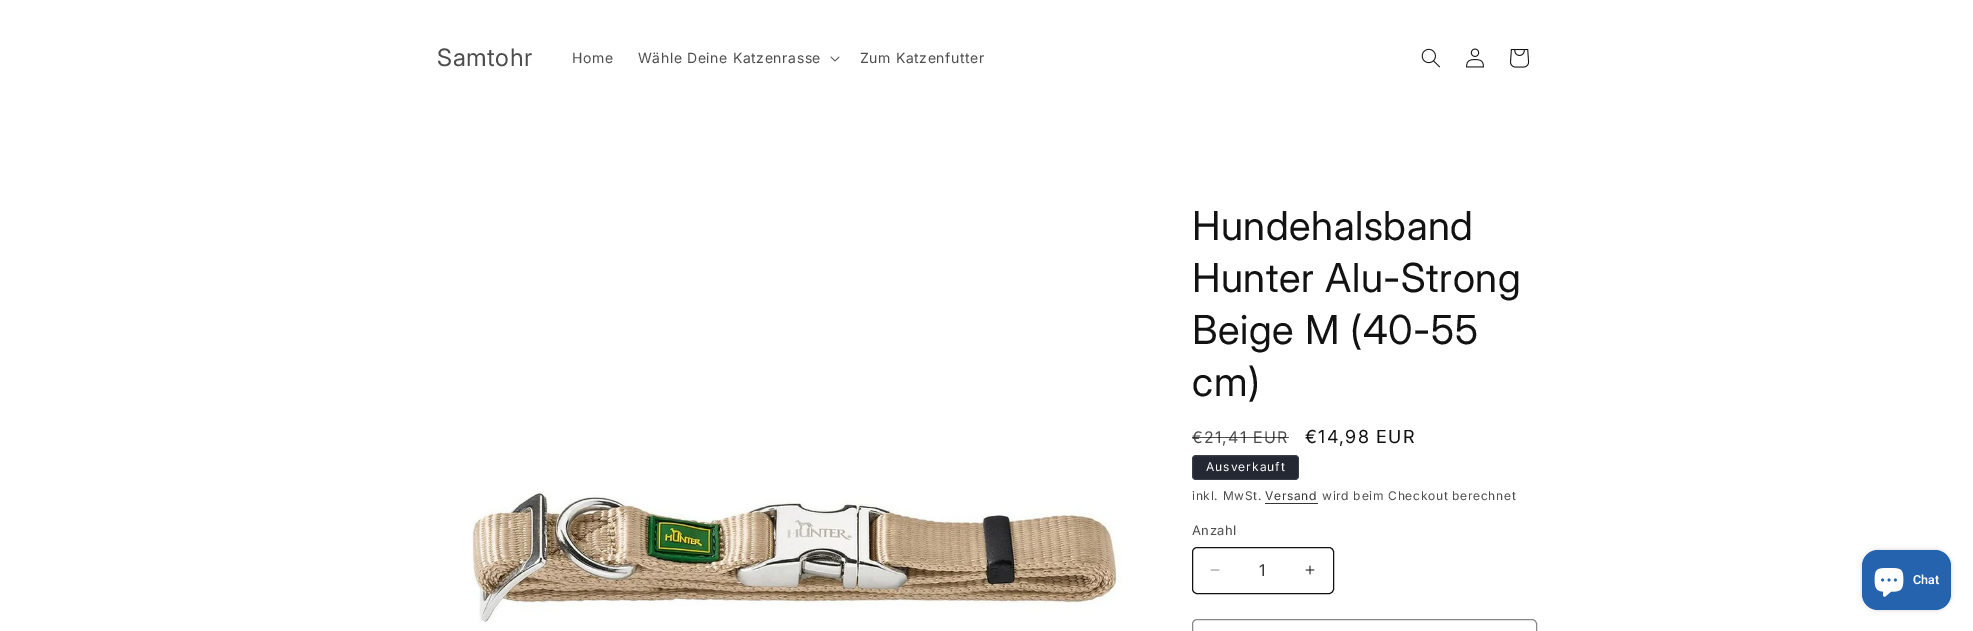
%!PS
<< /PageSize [1973 631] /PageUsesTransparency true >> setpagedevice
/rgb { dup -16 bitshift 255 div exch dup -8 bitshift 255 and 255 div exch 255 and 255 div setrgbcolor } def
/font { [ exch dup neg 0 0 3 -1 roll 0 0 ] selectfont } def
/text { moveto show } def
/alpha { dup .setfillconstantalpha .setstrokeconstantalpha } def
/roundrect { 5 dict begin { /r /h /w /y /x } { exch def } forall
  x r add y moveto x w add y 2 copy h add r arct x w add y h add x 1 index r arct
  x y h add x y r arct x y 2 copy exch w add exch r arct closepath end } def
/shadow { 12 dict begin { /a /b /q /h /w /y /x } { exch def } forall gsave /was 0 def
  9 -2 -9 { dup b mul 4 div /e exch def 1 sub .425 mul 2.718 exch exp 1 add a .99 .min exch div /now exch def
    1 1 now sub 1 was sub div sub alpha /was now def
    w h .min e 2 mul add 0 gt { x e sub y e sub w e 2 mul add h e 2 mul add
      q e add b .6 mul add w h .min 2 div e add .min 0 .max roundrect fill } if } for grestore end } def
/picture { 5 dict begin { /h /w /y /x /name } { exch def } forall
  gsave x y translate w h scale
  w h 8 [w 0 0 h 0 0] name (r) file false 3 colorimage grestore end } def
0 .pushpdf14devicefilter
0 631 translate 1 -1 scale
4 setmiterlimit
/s1 { /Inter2-Regular 16 font 16#363636 rgb } def
/s2 { /Roboto-SemiBold 12.5 font 16#FFFFFF rgb } def
16#FFFFFF rgb
0 0 1973 631 rectfill
/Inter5-Regular 24 font
16#4D4D4D rgb
437 66 moveto 0.6 0 (Samtohr) ashow
/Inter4-Regular 14 font
572 63 moveto 0.6 0 (Home) ashow
638 63 moveto 0.6 0 (Wähle Deine Katzenrasse) ashow
(pic1.raw) 830 56 10 6 picture
860 63 moveto 0.6 0 (Zum Katzenfutter) ashow
(pic2.raw) 1421 48 19 20 picture
(pic3.raw) 1466 48 18 20 picture
(pic4.raw) 1510 49 20 19 picture
(pic5.raw) 471 491 652 133 picture
/Inter-Regular 40 font
16#121212 rgb
1192 240 moveto 0.6 0 (Hundehalsband) ashow
1192 292 moveto 0.6 0 (Hunter Alu-Strong) ashow
1192 344 moveto 0.6 0 (Beige M \(40-55) ashow
1192 396 moveto 0.6 0 (cm\)) ashow
/Inter2-Regular 16 font
16#4D4D4D rgb
1192 443 moveto 1.25 0 (€21,41 EUR) ashow
0.75 alpha
16#121212 rgb
1192 437 97 1 rectfill
/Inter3-Regular 18 font
1 alpha
1305 443 moveto 1.25 0 (€14,98 EUR) ashow
16#242833 rgb
1192 455 107 25 4 roundrect fill
0.1 alpha
16#FFFFFF rgb
1192.5 455.5 106 24 3.5 roundrect stroke
/Inter4-Regular 12 font
1 alpha
1206 471 moveto 1 0 (Ausverkauft) ashow
16#4D4D4D rgb
1192 500 moveto 0.7 0 (inkl. MwSt.) ashow
16#363636 rgb
1265 500 moveto 0.7 0 (Versand) ashow
1265 503 53 1 rectfill
16#4D4D4D rgb
1322 500 moveto 0.7 0 (wird beim Checkout berechnet) ashow
/Inter4-Regular 13 font
1192 535 moveto 0.5 0 (Anzahl) ashow
(pic6.raw) 1210 569 10 2 picture
(pic7.raw) 1305 565 10 10 picture
16#121212 rgb
1192.5 547.5 141 46 4.5 roundrect stroke
s1
(1) 1259 576 text
16#898989 rgb
1192.5 619.5 344 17 4.5 roundrect stroke
16#000000 rgb
1862 550 89 60 16 2.5 0.15 shadow
16#2563AF rgb
1862 550 89 60 16 roundrect fill
(pic8.raw) 1874 568 30 29 picture
s2
(Chat) 1913 584 text
.poppdf14devicefilter showpage
